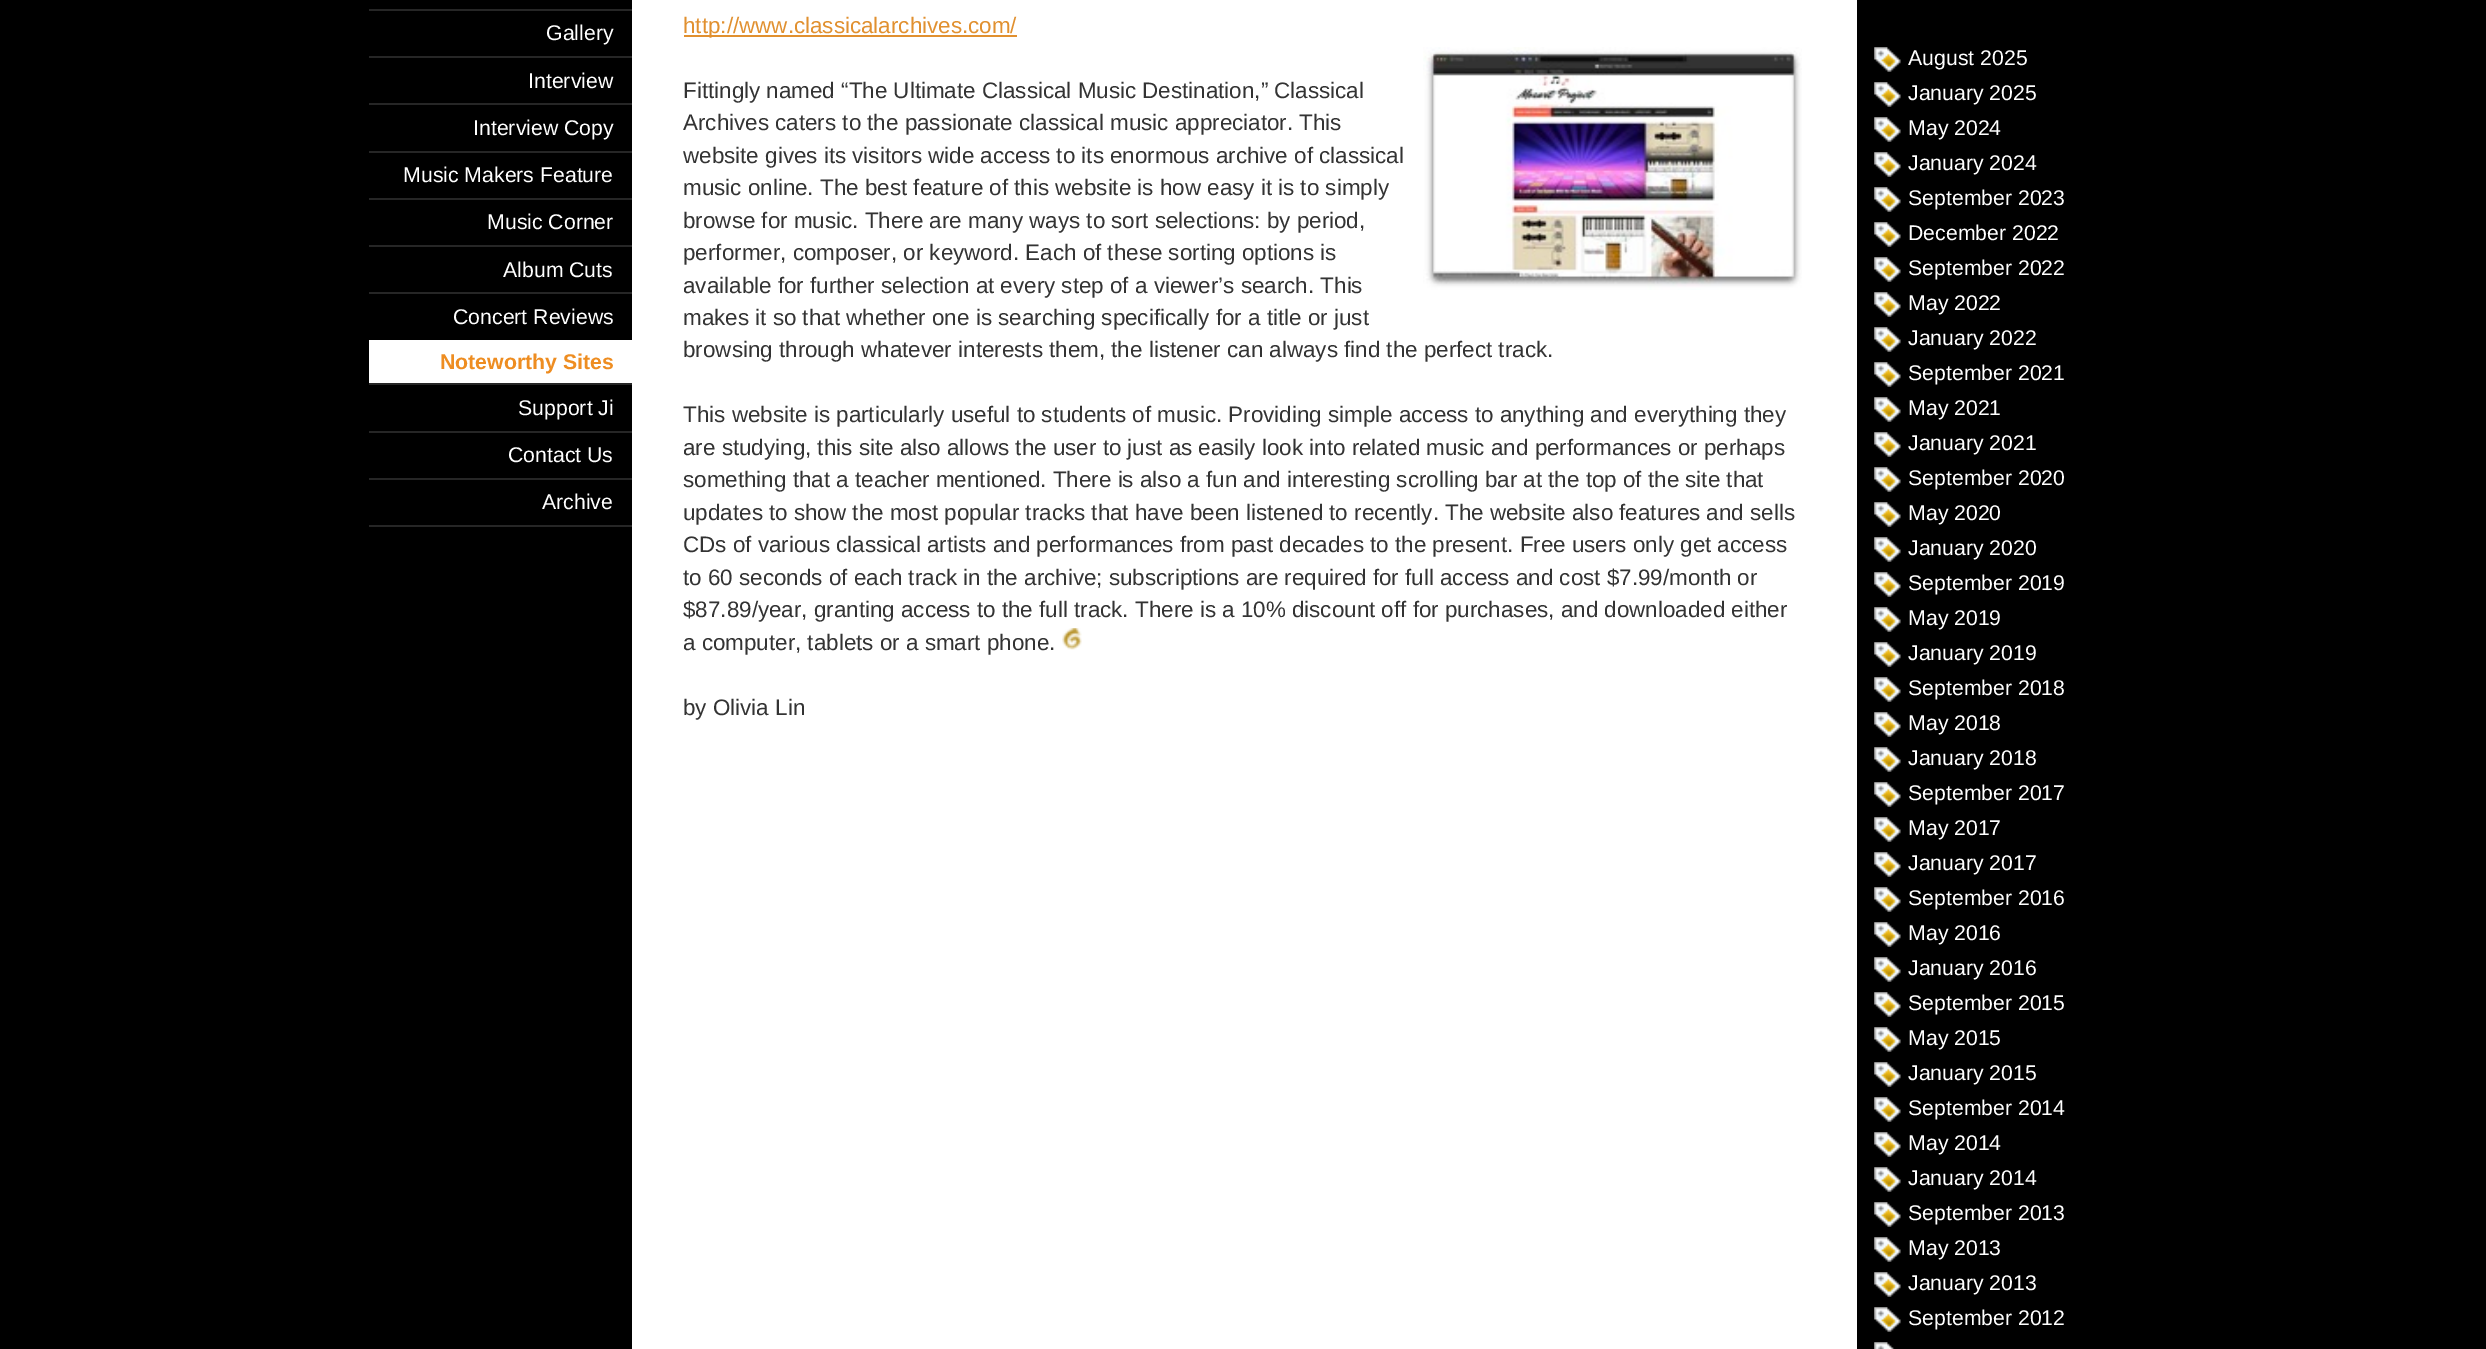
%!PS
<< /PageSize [2486 1349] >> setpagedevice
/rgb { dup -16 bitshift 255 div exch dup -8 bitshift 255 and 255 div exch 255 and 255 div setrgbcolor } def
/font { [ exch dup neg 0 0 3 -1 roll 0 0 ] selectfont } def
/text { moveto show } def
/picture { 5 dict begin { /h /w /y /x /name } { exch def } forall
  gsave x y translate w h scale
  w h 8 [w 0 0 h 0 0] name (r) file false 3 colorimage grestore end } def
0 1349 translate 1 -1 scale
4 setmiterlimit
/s1 { /LiberationSans-Regular 21.25 font 16#FFFFFF rgb } def
/s2 { /LiberationSans-Bold 21.25 font 16#EE8D21 rgb } def
/s3 { /LiberationSans-Regular 22.4 font 16#E1902F rgb } def
/s4 { /LiberationSans-Regular 22.4 font 16#333333 rgb } def
16#000000 rgb
0 0 2486 1349 rectfill
16#262626 rgb
369 525 263 2 rectfill
369 9 263 2 rectfill
s1
(Gallery) 546 40 text
16#262626 rgb
369 56 263 2 rectfill
s1
(Interview) 528 88 text
16#262626 rgb
369 103 263 2 rectfill
s1
(Interview Copy) 473 135 text
16#262626 rgb
369 151 263 2 rectfill
s1
(Music Makers Feature) 403 182 text
16#262626 rgb
369 198 263 2 rectfill
s1
(Music Corner) 487 229 text
16#262626 rgb
369 245 263 2 rectfill
s1
(Album Cuts) 503 277 text
16#262626 rgb
369 292 263 2 rectfill
s1
(Concert Reviews) 453 324 text
369 340 263 43 rectfill
s2
(Noteworthy Sites) 440 369 text
16#262626 rgb
369 383 263 2 rectfill
s1
(Support Ji) 518 415 text
16#262626 rgb
369 431 263 2 rectfill
s1
(Contact Us) 508 462 text
16#262626 rgb
369 478 263 2 rectfill
s1
(Archive) 542 509 text
632 0 1225 1349 rectfill
16#E1902F rgb
684 35 333 2 rectfill
s3
(http://www.classicalarchives.com/) 683 33 text
s4
(Fittingly named “The Ultimate Classical Music Destination,” Classical) 683 98 text
(pic1.raw) 1423 47 379 243 picture
(Archives caters to the passionate classical music appreciator. This) 683 130 text
(website gives its visitors wide access to its enormous archive of classical) 683 163 text
(music online. The best feature of this website is how easy it is to simply) 683 195 text
(browse for music. There are many ways to sort selections: by period,) 683 228 text
(performer, composer, or keyword. Each of these sorting options is) 683 260 text
(available for further selection at every step of a viewer’s search. This) 683 293 text
(makes it so that whether one is searching specifically for a title or just) 683 325 text
(browsing through whatever interests them, the listener can always find the perfect track.) 683 357 text
(This website is particularly useful to students of music. Providing simple access to anything and everything they) 683 422 text
(are studying, this site also allows the user to just as easily look into related music and performances or perhaps) 683 455 text
(something that a teacher mentioned. There is also a fun and interesting scrolling bar at the top of the site that) 683 487 text
(updates to show the most popular tracks that have been listened to recently. The website also features and sells) 683 520 text
(CDs of various classical artists and performances from past decades to the present. Free users only get access) 683 552 text
(to 60 seconds of each track in the archive; subscriptions are required for full access and cost $7.99/month or) 683 585 text
($87.89/year, granting access to the full track. There is a 10% discount off for purchases, and downloaded either) 683 617 text
(a computer, tablets or a smart phone.) 683 650 text
(pic2.raw) 1062 628 20 22 picture
(by Olivia Lin) 683 715 text
(pic3.raw) 1874 47 27 25 picture
s1
(August 2025) 1908 65 text
(pic3.raw) 1874 82 27 25 picture
(January 2025) 1908 100 text
(pic3.raw) 1874 117 27 25 picture
(May 2024) 1908 135 text
(pic3.raw) 1874 152 27 25 picture
(January 2024) 1908 170 text
(pic3.raw) 1874 187 27 25 picture
(September 2023) 1908 205 text
(pic3.raw) 1874 222 27 25 picture
(December 2022) 1908 240 text
(pic3.raw) 1874 257 27 25 picture
(September 2022) 1908 275 text
(pic3.raw) 1874 292 27 25 picture
(May 2022) 1908 310 text
(pic3.raw) 1874 327 27 25 picture
(January 2022) 1908 345 text
(pic3.raw) 1874 362 27 25 picture
(September 2021) 1908 380 text
(pic3.raw) 1874 397 27 25 picture
(May 2021) 1908 415 text
(pic3.raw) 1874 432 27 25 picture
(January 2021) 1908 450 text
(pic3.raw) 1874 467 27 25 picture
(September 2020) 1908 485 text
(pic3.raw) 1874 502 27 25 picture
(May 2020) 1908 520 text
(pic3.raw) 1874 537 27 25 picture
(January 2020) 1908 555 text
(pic3.raw) 1874 572 27 25 picture
(September 2019) 1908 590 text
(pic3.raw) 1874 607 27 25 picture
(May 2019) 1908 625 text
(pic3.raw) 1874 642 27 25 picture
(January 2019) 1908 660 text
(pic3.raw) 1874 677 27 25 picture
(September 2018) 1908 695 text
(pic3.raw) 1874 712 27 25 picture
(May 2018) 1908 730 text
(pic3.raw) 1874 747 27 25 picture
(January 2018) 1908 765 text
(pic3.raw) 1874 782 27 25 picture
(September 2017) 1908 800 text
(pic3.raw) 1874 817 27 25 picture
(May 2017) 1908 835 text
(pic3.raw) 1874 852 27 25 picture
(January 2017) 1908 870 text
(pic3.raw) 1874 887 27 25 picture
(September 2016) 1908 905 text
(pic3.raw) 1874 922 27 25 picture
(May 2016) 1908 940 text
(pic3.raw) 1874 957 27 25 picture
(January 2016) 1908 975 text
(pic3.raw) 1874 992 27 25 picture
(September 2015) 1908 1010 text
(pic3.raw) 1874 1027 27 25 picture
(May 2015) 1908 1045 text
(pic3.raw) 1874 1062 27 25 picture
(January 2015) 1908 1080 text
(pic3.raw) 1874 1097 27 25 picture
(September 2014) 1908 1115 text
(pic3.raw) 1874 1132 27 25 picture
(May 2014) 1908 1150 text
(pic3.raw) 1874 1167 27 25 picture
(January 2014) 1908 1185 text
(pic3.raw) 1874 1202 27 25 picture
(September 2013) 1908 1220 text
(pic3.raw) 1874 1237 27 25 picture
(May 2013) 1908 1255 text
(pic3.raw) 1874 1272 27 25 picture
(January 2013) 1908 1290 text
(pic3.raw) 1874 1307 27 25 picture
(September 2012) 1908 1325 text
(pic4.raw) 1874 1342 21 7 picture
showpage
